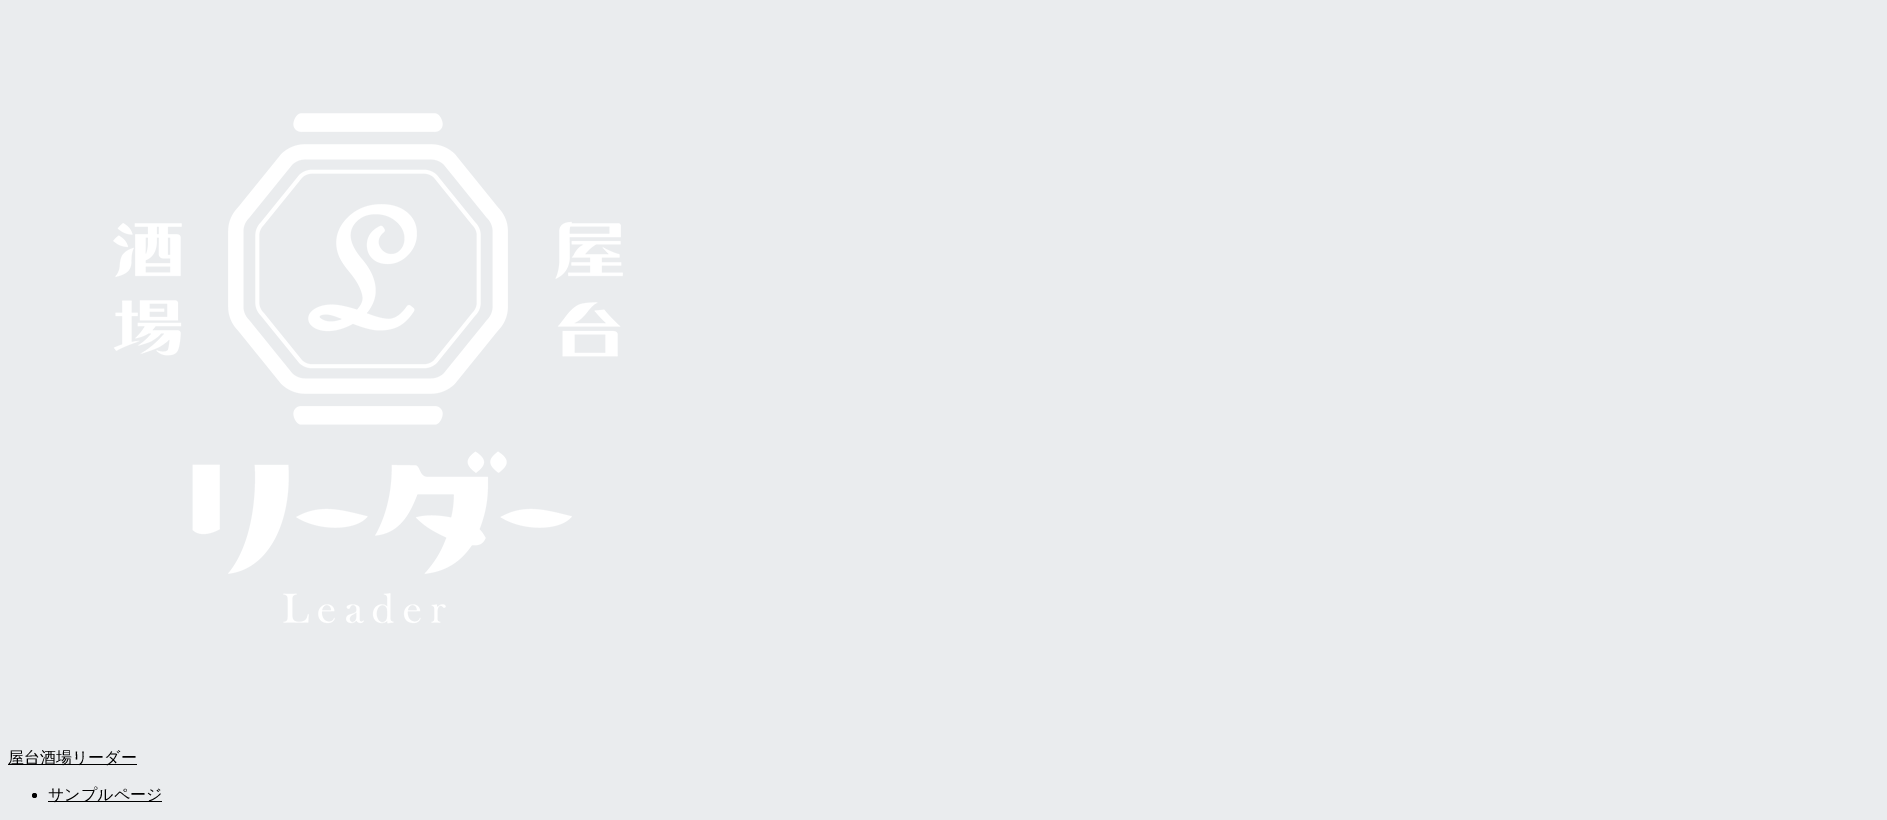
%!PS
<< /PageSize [1887 820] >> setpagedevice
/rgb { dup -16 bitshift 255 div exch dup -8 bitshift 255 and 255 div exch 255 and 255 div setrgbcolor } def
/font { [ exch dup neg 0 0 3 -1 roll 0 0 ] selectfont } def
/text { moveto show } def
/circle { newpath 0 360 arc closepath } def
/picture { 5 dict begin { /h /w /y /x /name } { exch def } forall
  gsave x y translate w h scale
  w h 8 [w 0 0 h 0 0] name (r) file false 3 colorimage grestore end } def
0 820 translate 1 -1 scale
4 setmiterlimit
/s1 { /WenQuanYiZenHei-Medium 16 font 16#000000 rgb } def
16#EAECEE rgb
0 0 1887 820 rectfill
(pic1.raw) 113 113 510 511 picture
16#000000 rgb
8 764 129 1 rectfill
s1
(屋台酒場リーダー) 8 763 text
34.5 795.5 2.5 circle fill
48 801 114 1 rectfill
(サンプルページ) 48 800 text
showpage
